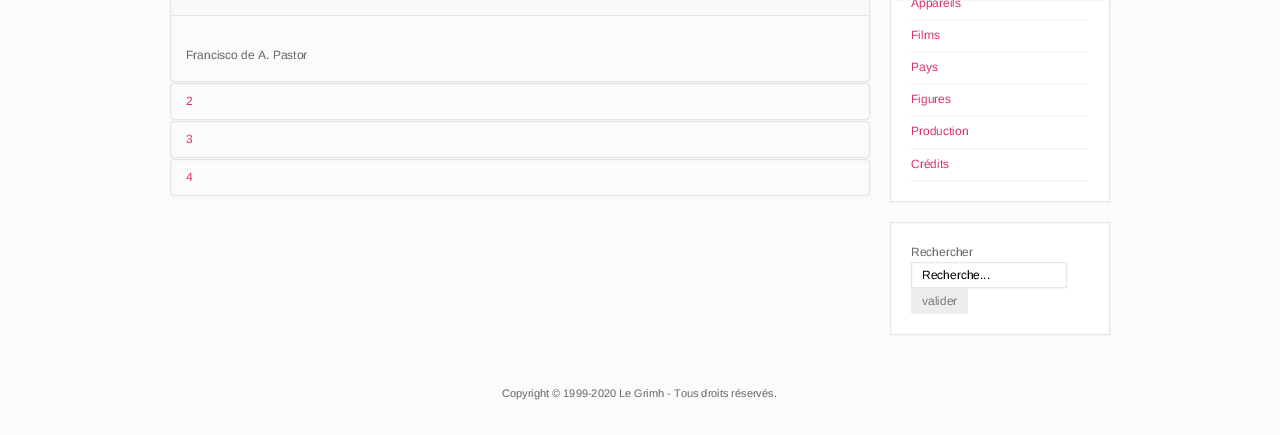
%!PS
<< /PageSize [1280 435] >> setpagedevice
/rgb { dup -16 bitshift 255 div exch dup -8 bitshift 255 and 255 div exch 255 and 255 div setrgbcolor } def
/font { [ exch dup neg 0 0 3 -1 roll 0 0 ] selectfont } def
/text { moveto show } def
/roundrect { 5 dict begin { /r /h /w /y /x } { exch def } forall
  x r add y moveto x w add y 2 copy h add r arct x w add y h add x 1 index r arct
  x y h add x y r arct x y 2 copy exch w add exch r arct closepath end } def
0 435 translate 1 -1 scale
4 setmiterlimit
/s1 { /LiberationSans-Regular 12 font 16#656667 rgb } def
/s2 { /LiberationSans-Regular 12 font 16#DE3068 rgb } def
/s3 { /LiberationSans-Regular 12 font 16#000000 rgb } def
/s4 { /LiberationSans-Regular 12 font 16#777777 rgb } def
/s5 { /LiberationSans-Regular 11 font 16#656667 rgb } def
16#FAFBFC rgb
0 0 1280 435 rectfill
16#E5E5E5 rgb
170.5 -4.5 699 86 3.5 roundrect stroke
16#F8F8F8 rgb
171 0 698 15 rectfill
16#E5E5E5 rgb
171 15 698 1 rectfill
s1
(Francisco de A. Pastor) 186 59 text
16#E5E5E5 rgb
170.5 83.5 699 36 3.5 roundrect stroke
s2
(2) 186 105 text
16#E5E5E5 rgb
170.5 121.5 699 36 3.5 roundrect stroke
s2
(3) 186 143 text
16#E5E5E5 rgb
170.5 159.5 699 36 3.5 roundrect stroke
s2
(4) 186 181 text
16#FFFFFF rgb
890.5 -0.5 moveto 1109.5 -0.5 lineto 1109.5 201.5 lineto 890.5 201.5 lineto closepath gsave fill grestore
16#E5E6E7 rgb
stroke
[1 1] 0 setdash
911 19.5 moveto 1089 19.5 lineto stroke
s2
(Appareils) 911 7 text
16#E5E6E7 rgb
911 51.5 moveto 1089 51.5 lineto stroke
s2
(Films) 911 39 text
16#E5E6E7 rgb
911 83.5 moveto 1089 83.5 lineto stroke
s2
(Pays) 911 71 text
16#E5E6E7 rgb
911 115.5 moveto 1089 115.5 lineto stroke
s2
(Figures) 911 103 text
16#E5E6E7 rgb
911 148.5 moveto 1089 148.5 lineto stroke
s2
(Production) 911 135 text
16#E5E6E7 rgb
911 180.5 moveto 1089 180.5 lineto stroke
s2
(Crédits) 911 168 text
16#FFFFFF rgb
890.5 222.5 moveto 1109.5 222.5 lineto 1109.5 334.5 lineto 890.5 334.5 lineto closepath gsave fill grestore
16#E5E6E7 rgb
[] 0 setdash
stroke
s1
(Rechercher) 911 256 text
16#E5E6E7 rgb
911.5 262.5 155 25 rectstroke
s3
(Recherche...) 922 279 text
16#EDEDED rgb
911 288 57 26 rectfill
s4
(valider) 922 305 text
s5
(Copyright © 1999-2020 Le Grimh - Tous droits réservés.) 502 397 text
showpage
